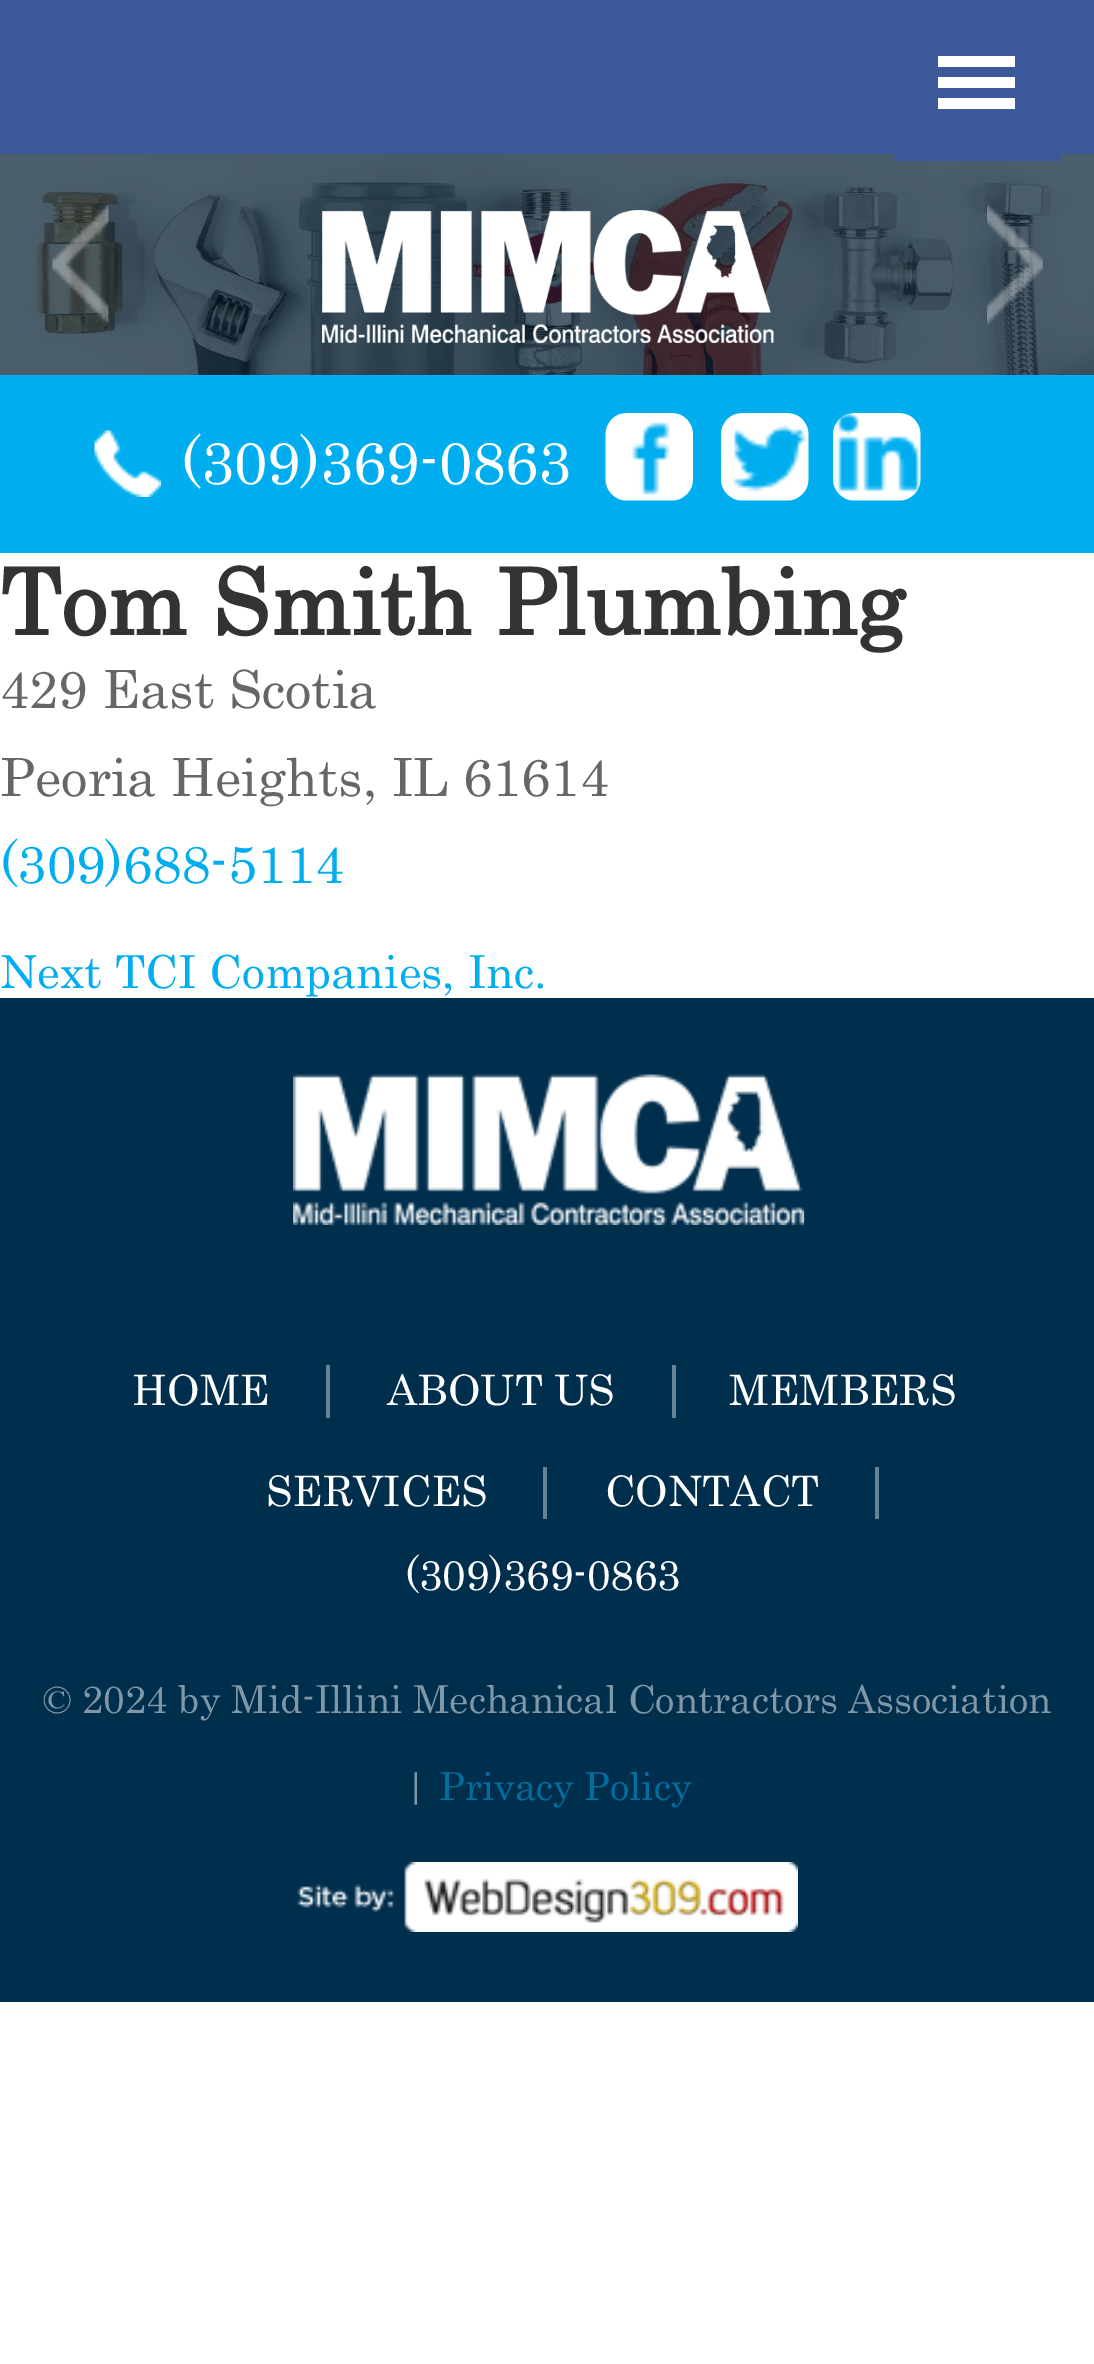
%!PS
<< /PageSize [1094 2364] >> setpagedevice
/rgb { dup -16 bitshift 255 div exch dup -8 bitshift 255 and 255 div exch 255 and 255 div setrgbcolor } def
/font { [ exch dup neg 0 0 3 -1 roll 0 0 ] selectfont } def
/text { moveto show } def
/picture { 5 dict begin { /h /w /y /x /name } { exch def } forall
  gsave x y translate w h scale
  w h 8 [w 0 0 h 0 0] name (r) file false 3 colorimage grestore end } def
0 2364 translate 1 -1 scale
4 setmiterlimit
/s1 { /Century-Regular 59.5 font 16#FFFFFF rgb } def
/s2 { /Century-Bold 91 font 16#333333 rgb } def
/s3 { /Century-Regular 52.5 font 16#666666 rgb } def
/s4 { /Century-Regular 52.5 font 16#00AEEF rgb } def
/s5 { /Century-Regular 45.5 font 16#00AEEF rgb } def
/s6 { /Century-Regular 42 font 16#FFFFFF rgb } def
/s7 { /Century-Regular 38.5 font 16#8097A6 rgb } def
/s8 { /Century-Regular 38.5 font 16#006E9E rgb } def
16#FFFFFF rgb
0 0 1094 2364 rectfill
16#3B5998 rgb
0 0 1094 154 rectfill
(pic1.raw) 0 154 1094 221 picture
893 154 168 7 rectfill
16#FFFFFF rgb
938 56 77 11 rectfill
938 77 77 11 rectfill
938 98 77 11 rectfill
(pic2.raw) 52 202 57 124 picture
(pic3.raw) 987 202 56 125 picture
(pic4.raw) 322 210 452 133 picture
16#00AEEF rgb
0 375 1094 178 rectfill
(pic5.raw) 94 430 67 67 picture
s1
(\(309\)369-0863) 181 484 text
(pic6.raw) 605 413 88 88 picture
(pic7.raw) 721 413 88 88 picture
(pic8.raw) 833 413 88 88 picture
s2
(Tom Smith Plumbing) 0 635 text
s3
(429 East Scotia) 0 708 text
(Peoria Heights, IL 61614) 0 796 text
s4
(\(309\)688-5114) 0 883 text
s5
(Next TCI Companies, Inc.) 0 988 text
16#002E4D rgb
0 998 1094 1004 rectfill
(pic9.raw) 293 1074 512 151 picture
s6
(HOME) 132 1405 text
16#668294 rgb
326 1365 4 53 rectfill
s6
(ABOUT US) 387 1405 text
16#668294 rgb
672 1365 4 53 rectfill
s6
(MEMBERS) 729 1405 text
(SERVICES) 266 1506 text
16#668294 rgb
543 1467 4 52 rectfill
s6
(CONTACT) 605 1506 text
16#668294 rgb
875 1467 4 52 rectfill
s6
(\(309\)369-0863) 405 1590 text
s7
(© 2024 by Mid-Illini Mechanical Contractors Association) 43 1713 text
(|) 404 1800 text
s8
(Privacy Policy) 439 1800 text
(pic10.raw) 297 1862 501 70 picture
showpage
